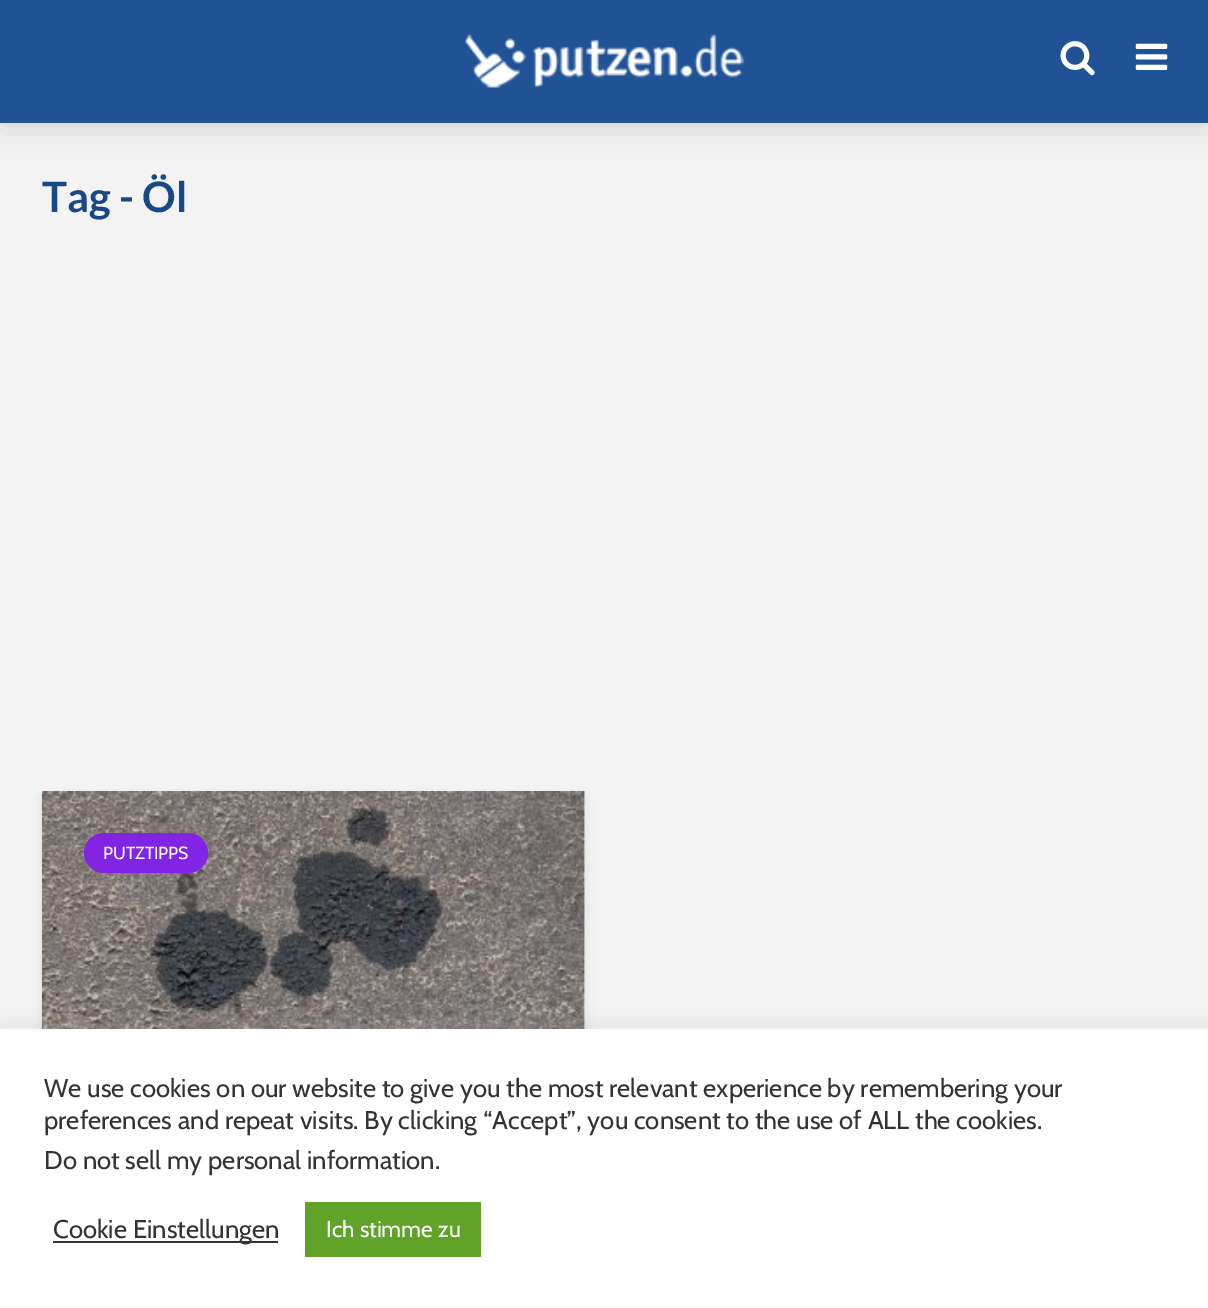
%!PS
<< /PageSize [1208 1308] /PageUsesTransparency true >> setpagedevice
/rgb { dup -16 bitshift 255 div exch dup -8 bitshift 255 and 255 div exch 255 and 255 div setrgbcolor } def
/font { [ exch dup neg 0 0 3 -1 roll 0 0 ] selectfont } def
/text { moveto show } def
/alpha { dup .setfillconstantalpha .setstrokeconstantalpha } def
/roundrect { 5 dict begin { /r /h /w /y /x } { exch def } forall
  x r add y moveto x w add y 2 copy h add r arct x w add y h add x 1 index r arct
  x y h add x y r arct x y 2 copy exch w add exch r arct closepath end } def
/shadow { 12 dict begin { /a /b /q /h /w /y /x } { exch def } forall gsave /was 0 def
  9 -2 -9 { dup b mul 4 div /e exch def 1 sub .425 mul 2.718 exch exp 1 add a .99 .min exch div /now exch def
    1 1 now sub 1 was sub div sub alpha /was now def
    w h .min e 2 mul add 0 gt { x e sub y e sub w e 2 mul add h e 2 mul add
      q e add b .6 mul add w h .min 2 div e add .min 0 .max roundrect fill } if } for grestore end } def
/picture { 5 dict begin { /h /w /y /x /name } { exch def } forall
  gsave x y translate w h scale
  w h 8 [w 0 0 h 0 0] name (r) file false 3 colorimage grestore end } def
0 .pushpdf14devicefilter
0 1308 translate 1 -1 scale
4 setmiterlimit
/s1 { /Lato-Bold 42 font 16#194888 rgb } def
/s2 { /Cabin-Regular 17.5 font 16#FFFFFF rgb } def
/s3 { /Cabin-Regular 25.65 font 16#333333 rgb } def
/s4 { /Cabin-Regular 22.75 font 16#FFFFFF rgb } def
16#F3F3F3 rgb
0 0 1208 1308 rectfill
16#000000 rgb
0 0 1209 123 0 17.5 0.15 shadow
16#205296 rgb
0 0 1208 123 rectfill
(pic1.raw) 465 34 280 54 picture
(pic2.raw) 1060 41 35 35 picture
(pic3.raw) 1135 43 33 27 picture
s1
(Tag - Öl) 42 212 text
16#000101 rgb
42 796 543 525 0 4.5 0.1 shadow
16#FFFFFF rgb
584 791 1 238 rectfill
(pic4.raw) 42 791 543 238 picture
16#8224E3 rgb
84 833 124 40 20 roundrect fill
s2
(PUTZTIPPS) 103 859 text
16#ACABAB rgb
0 1027 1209 280 0 9 0.3 shadow
16#FFFFFF rgb
0 1029 1208 279 rectfill
s3
(We use cookies on our website to give you the most relevant experience by remembering your) 44 1097 text
(preferences and repeat visits. By clicking “Accept”, you consent to the use of ALL the cookies.) 44 1129 text
(Do not sell my personal information.) 44 1169 text
53 1241 225 2 rectfill
(Cookie Einstellungen) 53 1238 text
16#61A229 rgb
305 1202 176 55 rectfill
s4
(Ich stimme zu) 326 1237 text
.poppdf14devicefilter showpage
